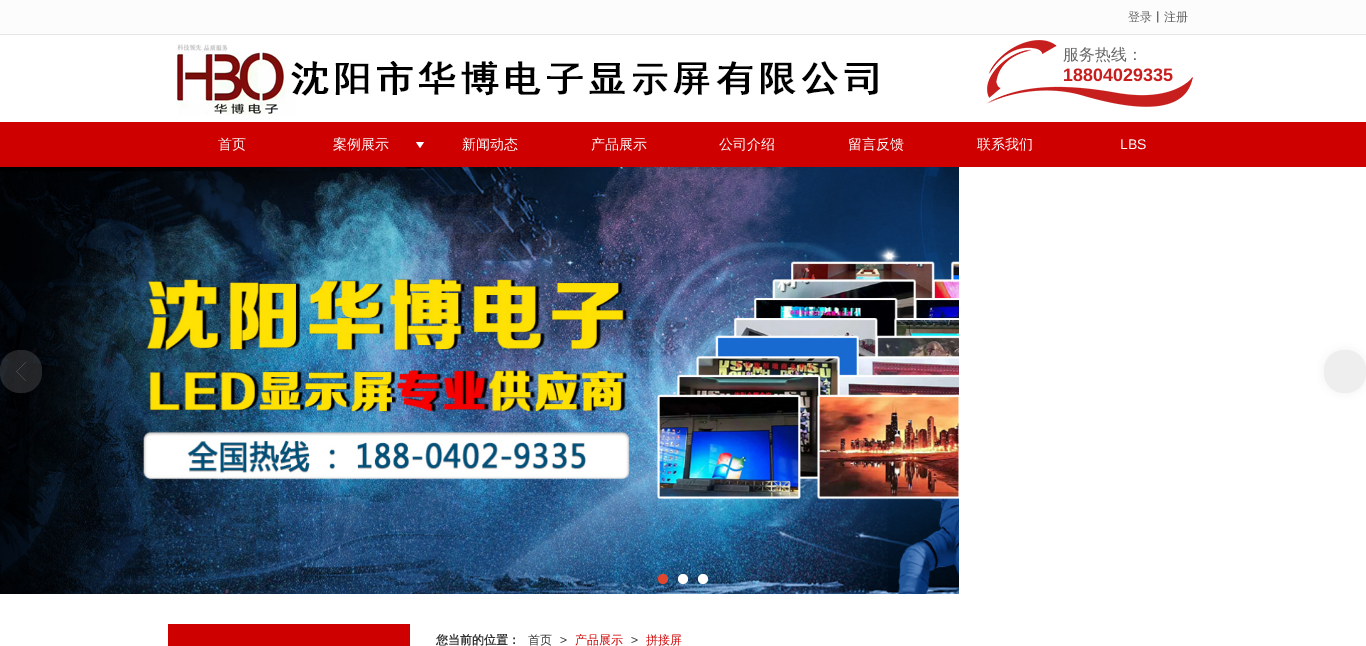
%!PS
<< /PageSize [1366 646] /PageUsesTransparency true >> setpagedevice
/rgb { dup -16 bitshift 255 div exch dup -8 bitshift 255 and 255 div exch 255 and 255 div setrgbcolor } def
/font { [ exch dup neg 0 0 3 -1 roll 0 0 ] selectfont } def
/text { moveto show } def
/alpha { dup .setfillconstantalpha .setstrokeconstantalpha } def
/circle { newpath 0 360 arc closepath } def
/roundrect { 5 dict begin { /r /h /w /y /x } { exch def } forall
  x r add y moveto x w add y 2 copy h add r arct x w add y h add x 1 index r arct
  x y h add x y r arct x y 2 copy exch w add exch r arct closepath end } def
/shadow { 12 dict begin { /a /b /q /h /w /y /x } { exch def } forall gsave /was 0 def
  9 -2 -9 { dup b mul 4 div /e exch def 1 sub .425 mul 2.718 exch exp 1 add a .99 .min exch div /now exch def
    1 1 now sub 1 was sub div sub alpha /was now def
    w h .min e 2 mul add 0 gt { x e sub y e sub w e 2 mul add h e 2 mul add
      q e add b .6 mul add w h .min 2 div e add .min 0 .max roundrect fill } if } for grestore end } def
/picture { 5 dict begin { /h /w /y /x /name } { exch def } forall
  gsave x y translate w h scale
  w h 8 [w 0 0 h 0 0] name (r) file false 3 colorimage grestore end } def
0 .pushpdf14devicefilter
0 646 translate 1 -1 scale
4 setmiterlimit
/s1 { /WenQuanYiZenHei-Medium 12 font 16#666666 rgb } def
/s2 { /WenQuanYiZenHei-Medium 12 font 16#333333 rgb } def
/s3 { /WenQuanYiZenHei-Medium 16 font 16#666666 rgb } def
/s4 { /LiberationSans-Bold 18 font 16#C71E1E rgb } def
/s5 { /WenQuanYiZenHei-Medium 14 font 16#FFFFFF rgb } def
/s6 { /LiberationSans-Regular 14 font 16#FFFFFF rgb } def
/s7 { /WenQuanYiZenHei-Bold 12 font 16#333333 rgb } def
/s8 { /LiberationSans-Regular 12 font 16#333333 rgb } def
/s9 { /WenQuanYiZenHei-Medium 12 font 16#CE0000 rgb } def
16#FFFFFF rgb
0 0 1366 646 rectfill
16#FCFCFC rgb
0 0 1366 34 rectfill
16#E6E6E6 rgb
0 34 1366 1 rectfill
s1
(登录) 1128 21 text
s2
(丨) 1152 21 text
s1
(注册) 1164 21 text
(pic1.raw) 176 44 702 71 picture
s3
(服务热线：) 1063 60 text
s4
(18804029335) 1063 81 text
(pic2.raw) 987 40 206 67 picture
16#CE0000 rgb
0 122 1366 45 rectfill
s5
(首页) 218 149 text
(案例展示) 333 149 text
416 142 moveto 424 142 lineto 420 148 lineto closepath fill
(新闻动态) 462 149 text
(产品展示) 591 149 text
(公司介绍) 719 149 text
(留言反馈) 848 149 text
(联系我们) 977 149 text
s6
(LBS) 1120 149 text
(pic3.raw) 0 167 137 427 picture
(pic4.raw) 137 167 137 427 picture
(pic5.raw) 274 167 137 427 picture
(pic6.raw) 411 167 137 427 picture
(pic7.raw) 548 167 137 427 picture
(pic8.raw) 685 167 137 427 picture
(pic9.raw) 822 167 137 427 picture
0.4 alpha
16#000000 rgb
191 167 1 1 rectfill
1 alpha
16#CCCCCC rgb
1324 350 42 43 20 5 0.3 shadow
16#EEEEEE rgb
1324 350 42 43 20 roundrect fill
0.2 alpha
16#ACABAB rgb
0 350 42 43 20 roundrect fill
1 alpha
(pic10.raw) 16 362 10 19 picture
16#E1472F rgb
663 579 5 circle fill
16#FFFFFF rgb
683 579 5 circle fill
703 579 5 circle fill
16#CE0000 rgb
168 624 242 22 rectfill
s7
(您当前的位置：) 436 644 text
s2
(首页) 528 644 text
s8
(>) 560 644 text
s9
(产品展示) 575 644 text
s8
(>) 631 644 text
s9
(拼接屏) 646 644 text
.poppdf14devicefilter showpage
